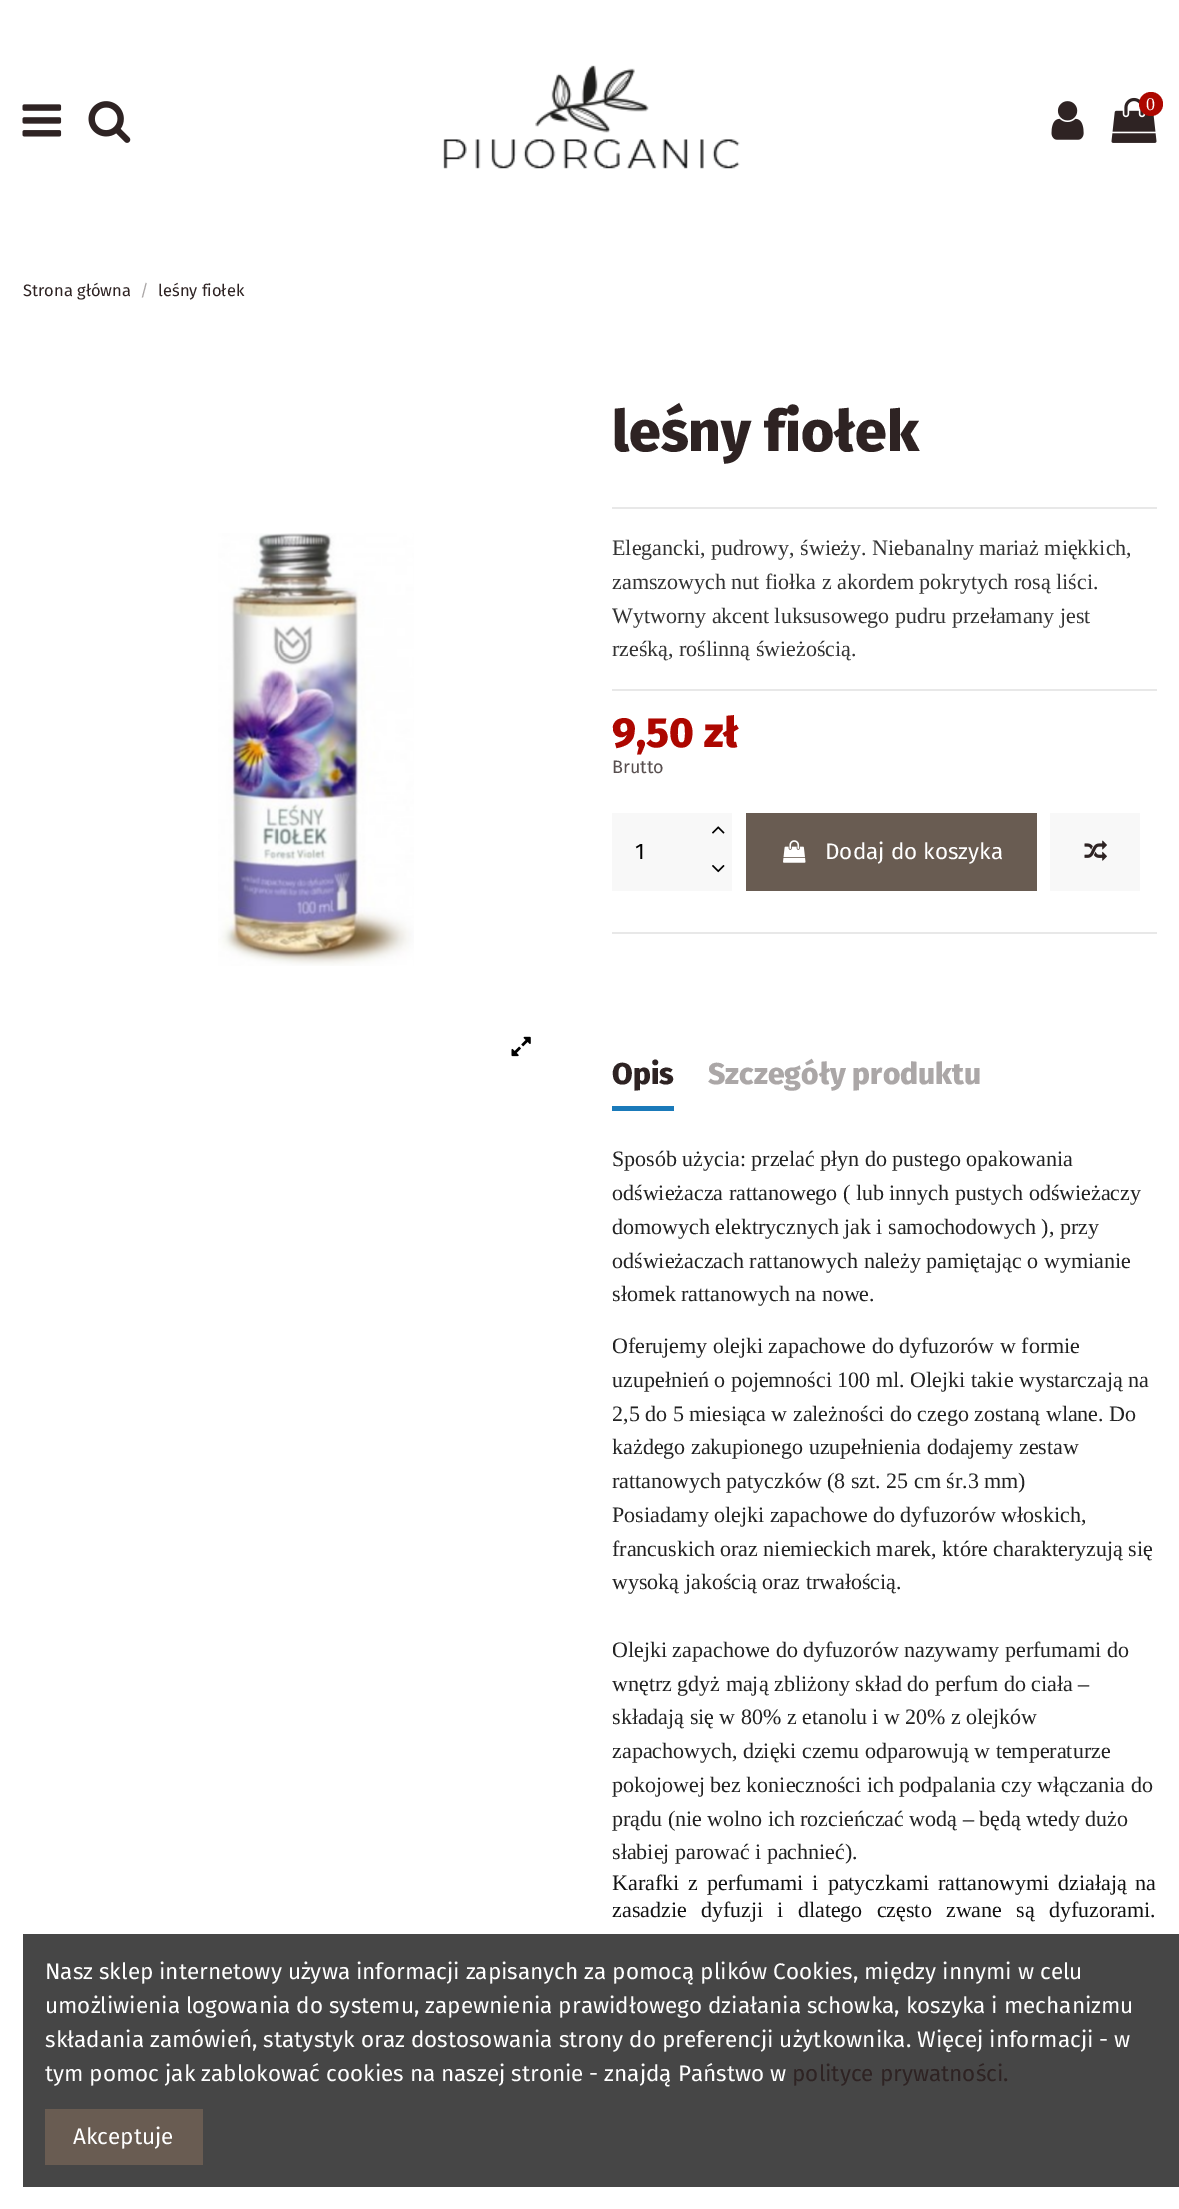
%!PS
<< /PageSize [1179 2209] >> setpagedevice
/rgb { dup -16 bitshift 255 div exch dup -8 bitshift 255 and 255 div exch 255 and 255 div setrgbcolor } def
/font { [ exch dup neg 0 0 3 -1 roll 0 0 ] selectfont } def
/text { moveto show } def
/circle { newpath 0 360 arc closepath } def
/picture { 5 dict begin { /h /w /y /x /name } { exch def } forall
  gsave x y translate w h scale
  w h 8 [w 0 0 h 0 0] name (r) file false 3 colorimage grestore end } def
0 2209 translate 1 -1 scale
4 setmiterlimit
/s1 { /LiberationSerif-Regular 18 font 16#FFFFFF rgb } def
/s2 { /FiraSans-Regular 16.5 font 16#2E2323 rgb } def
/s3 { /FiraSans-Regular 16.5 font 16#ABA7A7 rgb } def
/s4 { /FiraSans-ExtraBold 57 font 16#2E2323 rgb } def
/s5 { /LiberationSerif-Regular 22 font 16#333333 rgb } def
/s6 { /FiraSans-ExtraBold 42 font 16#AD0700 rgb } def
/s7 { /FiraSans-Regular 18 font 16#584F4F rgb } def
/s8 { /FiraSans-Regular 22.5 font 16#000000 rgb } def
/s9 { /FiraSans-Regular 22.5 font 16#FFFFFF rgb } def
/s10 { /FiraSans-ExtraBold 30 font 16#2E2323 rgb } def
/s11 { /FiraSans-ExtraBold 30 font 16#ABA7A7 rgb } def
/s12 { /LiberationSerif-Regular 22 font 16#222222 rgb } def
/s13 { /FiraSans-Regular 22.5 font 16#2E2323 rgb } def
16#FFFFFF rgb
0 0 1179 2209 rectfill
(pic1.raw) 22 104 40 33 picture
(pic2.raw) 88 101 43 42 picture
(pic3.raw) 443 65 297 104 picture
(pic4.raw) 1051 101 33 39 picture
(pic5.raw) 1111 97 46 46 picture
16#AD0700 rgb
1151 104 12 circle fill
s1
(0) 1146 110 text
s2
(Strona główna) 23 296 text
s3
(/) 140 296 text
s2
(leśny fiołek) 158 296 text
(pic6.raw) 218 533 196 433 picture
(pic7.raw) 511 1036 20 21 picture
16#E8E8E8 rgb
612 507 545 2 rectfill
s4
(leśny fiołek) 612 451 text
s5
(Elegancki, pudrowy, świeży. Niebanalny mariaż miękkich,) 612 555 text
(zamszowych nut fiołka z akordem pokrytych rosą liści.) 612 589 text
(Wytworny akcent luksusowego pudru przełamany jest) 612 623 text
(rześką, roślinną świeżością.) 612 656 text
16#E8E8E8 rgb
612 689 545 2 rectfill
s6
(9,50 zł) 612 747 text
s7
(Brutto) 612 773 text
16#F8F8F8 rgb
612 813 90 78 rectfill
s8
(1) 635 859 text
16#F8F8F8 rgb
702 813 30 78 rectfill
(pic8.raw) 712 826 13 8 picture
(pic9.raw) 712 865 13 8 picture
16#695C52 rgb
746 813 291 78 rectfill
(pic10.raw) 783 840 23 23 picture
s9
(Dodaj do koszyka) 825 859 text
16#F8F8F8 rgb
1050 813 90 78 rectfill
(pic11.raw) 1084 840 23 21 picture
16#E8E8E8 rgb
612 932 545 2 rectfill
16#1A7ABA rgb
612 1106 62 5 rectfill
s10
(Opis) 612 1084 text
s11
(Szczegóły produktu) 708 1084 text
s12
(Sposób użycia: przelać płyn do pustego opakowania) 612 1166 text
(odświeżacza rattanowego \( lub innych pustych odświeżaczy) 612 1200 text
(domowych elektrycznych jak i samochodowych \), przy) 612 1234 text
(odświeżaczach rattanowych należy pamiętając o wymianie) 612 1268 text
(słomek rattanowych na nowe.) 612 1301 text
(Oferujemy olejki zapachowe do dyfuzorów w formie) 612 1353 text
(uzupełnień o pojemności 100 ml. Olejki takie wystarczają na) 612 1387 text
(2,5 do 5 miesiąca w zależności do czego zostaną wlane. Do) 612 1421 text
(każdego zakupionego uzupełnienia dodajemy zestaw) 612 1454 text
(rattanowych patyczków \(8 szt. 25 cm śr.3 mm\)) 612 1488 text
(Posiadamy olejki zapachowe do dyfuzorów włoskich,) 612 1522 text
(francuskich oraz niemieckich marek, które charakteryzują się) 612 1556 text
(wysoką jakością oraz trwałością.) 612 1589 text
(Olejki zapachowe do dyfuzorów nazywamy perfumami do) 612 1657 text
(wnętrz gdyż mają zbliżony skład do perfum do ciała –) 612 1691 text
(składają się w 80% z etanolu i w 20% z olejków) 612 1724 text
(zapachowych, dzięki czemu odparowują w temperaturze) 612 1758 text
(pokojowej bez konieczności ich podpalania czy włączania do) 612 1792 text
(prądu \(nie wolno ich rozcieńczać wodą – będą wtedy dużo) 612 1826 text
(słabiej parować i pachnieć\).) 612 1859 text
16#111111 rgb
612 1890 moveto 3.5 0 32 (Karafki z perfumami i patyczkami rattanowymi działają na) widthshow
612 1917 moveto 8.75 0 32 (zasadzie dyfuzji i dlatego często zwane są dyfuzorami.) widthshow
16#464646 rgb
23 1934 1156 253 rectfill
s9
(Nasz sklep internetowy używa informacji zapisanych za pomocą plików Cookies, między innymi w celu) 45 1979 text
(umożliwienia logowania do systemu, zapewnienia prawidłowego działania schowka, koszyka i mechanizmu) 45 2013 text
(składania zamówień, statystyk oraz dostosowania strony do preferencji użytkownika. Więcej informacji - w) 45 2047 text
(tym pomoc jak zablokować cookies na naszej stronie - znajdą Państwo w) 45 2081 text
s13
(polityce prywatności.) 792 2081 text
16#695C52 rgb
45 2109 158 56 rectfill
s9
(Akceptuje) 73 2144 text
showpage
